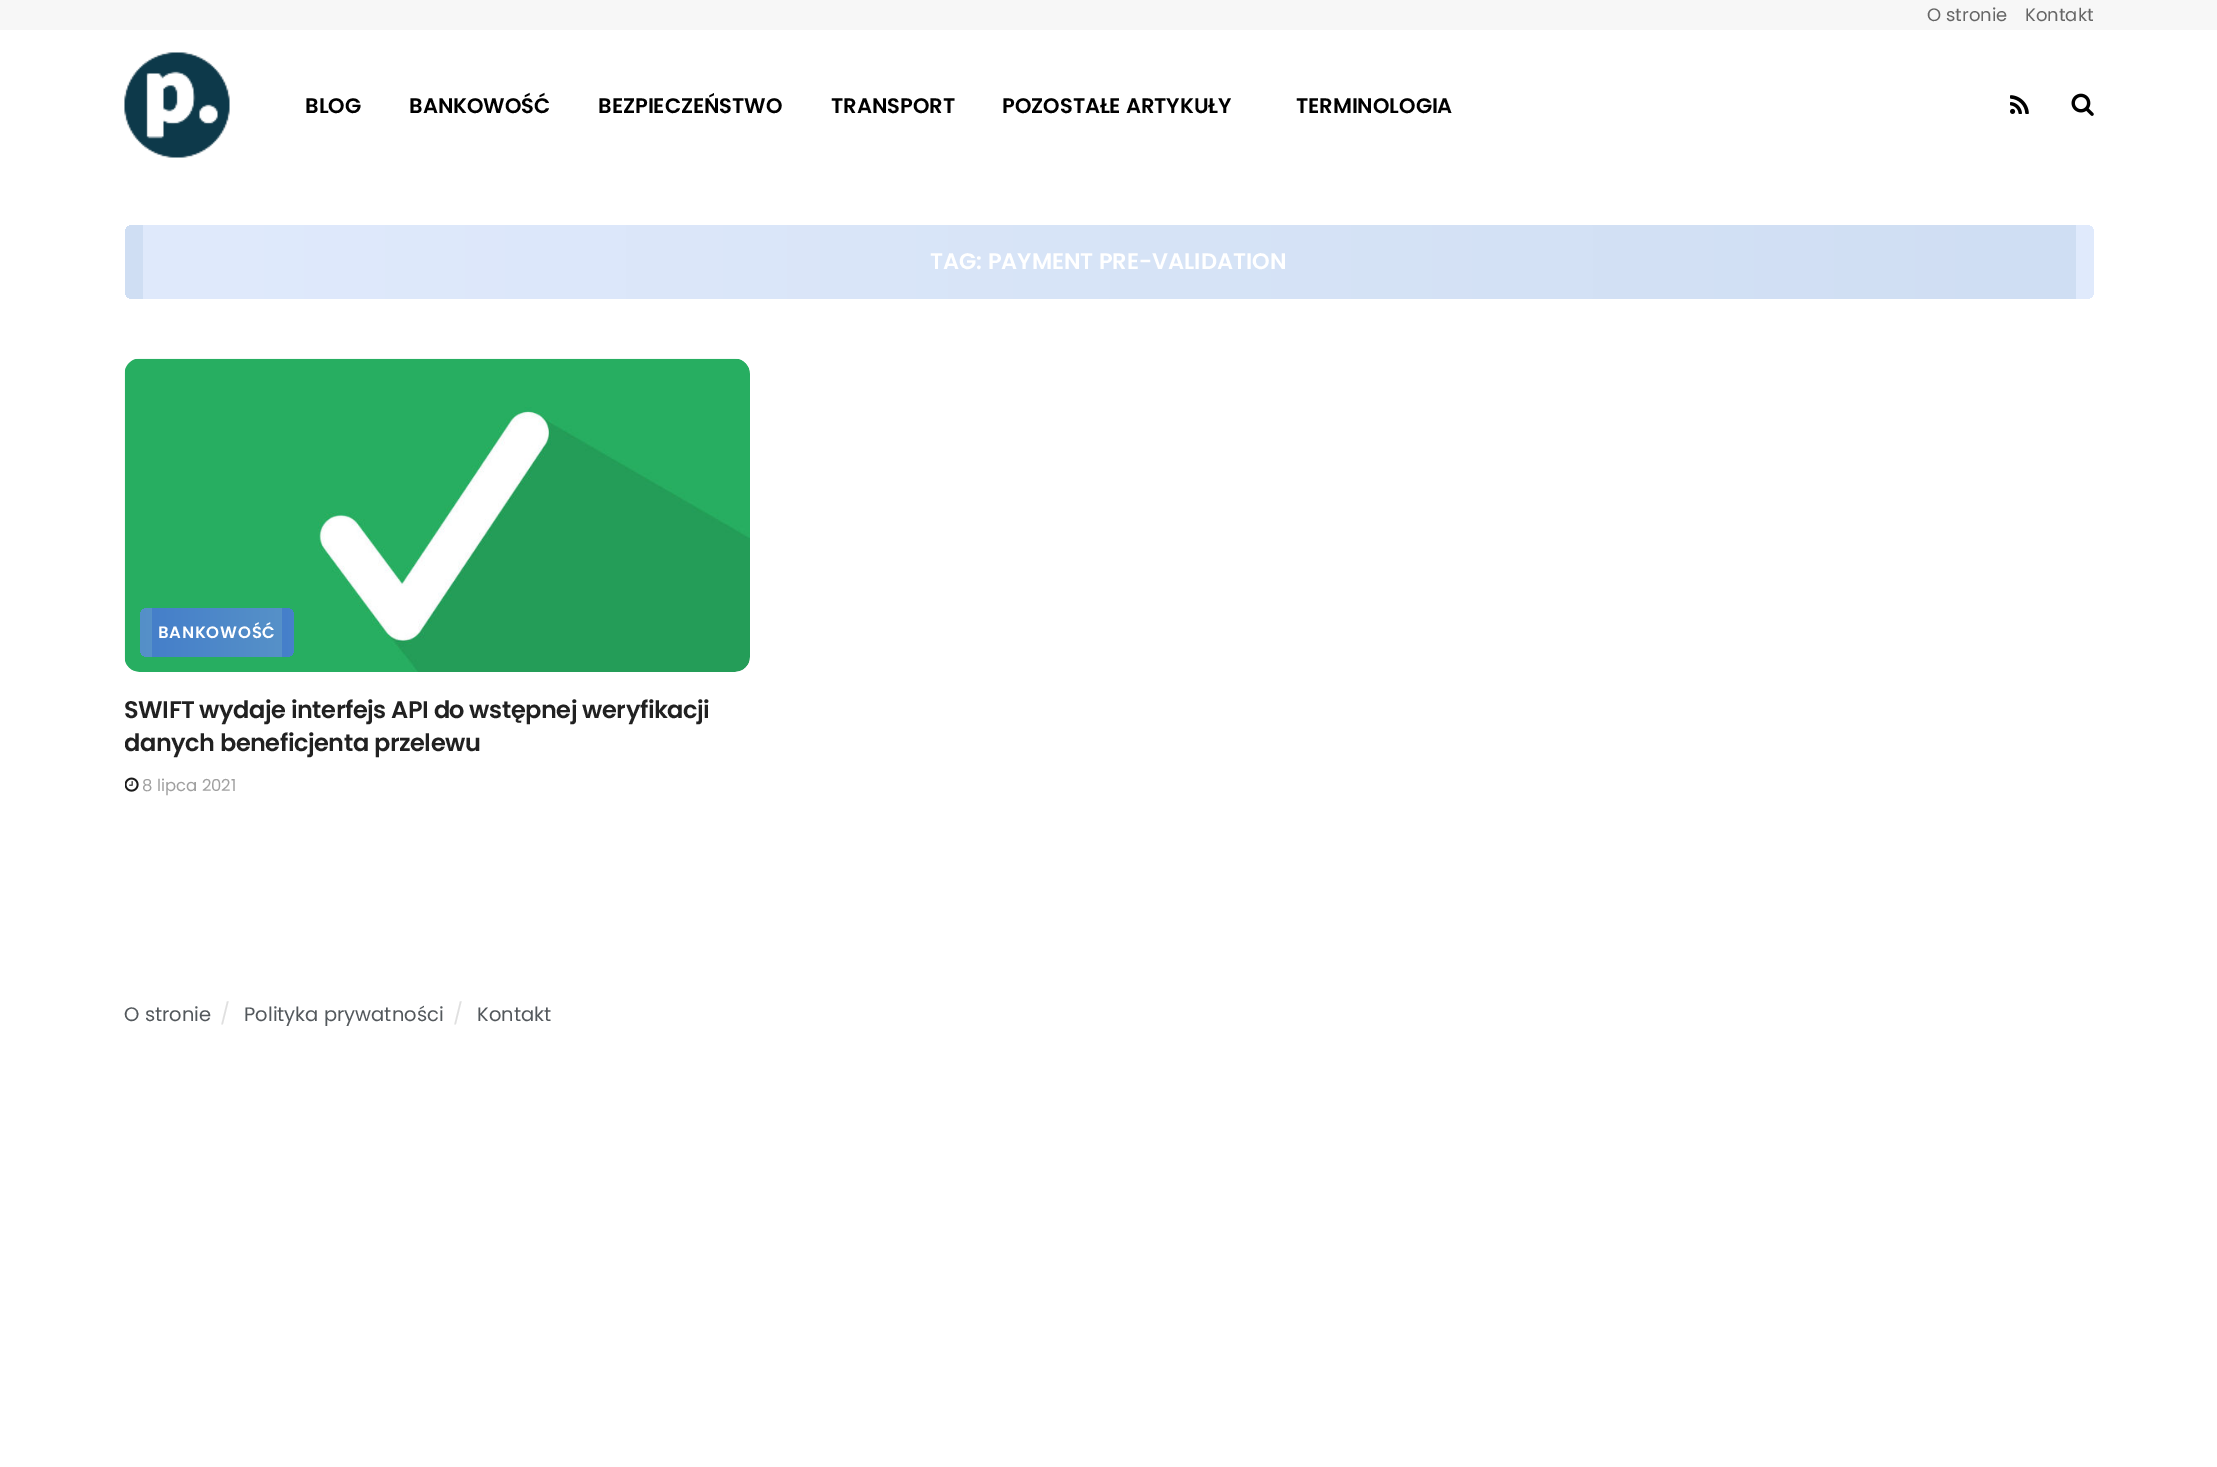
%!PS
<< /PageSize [2217 1467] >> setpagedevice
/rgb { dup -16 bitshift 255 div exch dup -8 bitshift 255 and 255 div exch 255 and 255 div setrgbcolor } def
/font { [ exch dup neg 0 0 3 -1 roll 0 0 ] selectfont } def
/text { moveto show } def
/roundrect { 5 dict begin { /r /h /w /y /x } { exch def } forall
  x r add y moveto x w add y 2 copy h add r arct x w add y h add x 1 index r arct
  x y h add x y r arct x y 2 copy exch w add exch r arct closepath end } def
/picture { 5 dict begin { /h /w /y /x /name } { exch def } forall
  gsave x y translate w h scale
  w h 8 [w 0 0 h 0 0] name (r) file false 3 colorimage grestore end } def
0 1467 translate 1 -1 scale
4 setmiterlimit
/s1 { /Poppins-Regular 18 font 16#666666 rgb } def
/s2 { /Poppins-SemiBold 21 font 16#000000 rgb } def
/s3 { /Poppins-SemiBold 22.5 font 16#FFFFFF rgb } def
/s4 { /Poppins-Regular 16.5 font 16#A0A0A0 rgb } def
/s5 { /Poppins-Regular 19.5 font 16#53585C rgb } def
/s6 { /Poppins-Regular 21 font 16#E0E0E0 rgb } def
16#FFFFFF rgb
0 0 2217 1467 rectfill
16#F7F7F7 rgb
0 0 2217 30 rectfill
s1
(O stronie) 1927 21 text
(Kontakt) 2025 21 text
(pic1.raw) 124 52 106 106 picture
s2
(BLOG) 305 113 text
(BANKOWOŚĆ) 409 113 text
(BEZPIECZEŃSTWO) 598 113 text
(TRANSPORT) 831 113 text
(POZOSTAŁE ARTYKUŁY) 1002 113 text
(TERMINOLOGIA) 1296 113 text
(pic2.raw) 2010 95 19 19 picture
(pic3.raw) 2071 93 23 23 picture
gsave 133 225 moveto 143 225 lineto 143 299 lineto 133 299 lineto 128.5 299 125 295.5 125 291 curveto 125 233 lineto 125 228.5 128.5 225 133 225 curveto closepath clip newpath
<< /ShadingType 2 /ColorSpace /DeviceRGB /Coords [-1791 262 143 262] /Extend [true true] /Function << /FunctionType 2 /Domain [0 1] /C0 [0.878 0.918 0.988] /C1 [0.812 0.871 0.953] /N 1 >> >> shfill grestore
gsave 143 225 moveto 2076 225 lineto 2076 299 lineto 143 299 lineto closepath clip newpath
<< /ShadingType 2 /ColorSpace /DeviceRGB /Coords [143 262 2076 262] /Extend [true true] /Function << /FunctionType 2 /Domain [0 1] /C0 [0.878 0.918 0.988] /C1 [0.812 0.871 0.953] /N 1 >> >> shfill grestore
gsave 2076 225 moveto 2086 225 lineto 2090.5 225 2094 228.5 2094 233 curveto 2094 291 lineto 2094 295.5 2090.5 299 2086 299 curveto 2076 299 lineto closepath clip newpath
<< /ShadingType 2 /ColorSpace /DeviceRGB /Coords [2076 262 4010 262] /Extend [true true] /Function << /FunctionType 2 /Domain [0 1] /C0 [0.878 0.918 0.988] /C1 [0.812 0.871 0.953] /N 1 >> >> shfill grestore
s3
(TAG: PAYMENT PRE-VALIDATION) 930 269 text
16#F7F7F7 rgb
125 359 625 313 15 roundrect fill
(pic5.raw) 125 359 11 306 picture
(pic4.raw) 124 358 626 314 picture
gsave 148 608 moveto 152 608 lineto 152 657 lineto 148 657 lineto 143.5 657 140 653.5 140 649 curveto 140 616 lineto 140 611.5 143.5 608 148 608 curveto closepath clip newpath
<< /ShadingType 2 /ColorSpace /DeviceRGB /Coords [21 632 152 632] /Extend [true true] /Function << /FunctionType 2 /Domain [0 1] /C0 [0.271 0.498 0.792] /C1 [0.337 0.569 0.784] /N 1 >> >> shfill grestore
gsave 152 608 moveto 282 608 lineto 282 657 lineto 152 657 lineto closepath clip newpath
<< /ShadingType 2 /ColorSpace /DeviceRGB /Coords [152 632 282 632] /Extend [true true] /Function << /FunctionType 2 /Domain [0 1] /C0 [0.271 0.498 0.792] /C1 [0.337 0.569 0.784] /N 1 >> >> shfill grestore
gsave 282 608 moveto 286 608 lineto 290.5 608 294 611.5 294 616 curveto 294 649 lineto 294 653.5 290.5 657 286 657 curveto 282 657 lineto closepath clip newpath
<< /ShadingType 2 /ColorSpace /DeviceRGB /Coords [282 632 413 632] /Extend [true true] /Function << /FunctionType 2 /Domain [0 1] /C0 [0.271 0.498 0.792] /C1 [0.337 0.569 0.784] /N 1 >> >> shfill grestore
/Poppins-SemiBold 16.5 font
16#FFFFFF rgb
158 638 moveto 0.75 0 (BANKOWOŚĆ) ashow
/Poppins-SemiBold 24 font
16#212121 rgb
124 718 moveto -0.45 0 (SWIFT wydaje interfejs API do wstępnej weryfikacji) ashow
gsave
125 359 1969 489 rectclip
124 751 moveto -0.45 0 (danych beneficjenta przelewu) ashow
grestore
(pic6.raw) 125 777 14 15 picture
s4
(8 lipca 2021) 142 791 text
s5
(O stronie) 124 1021 text
s6
(/) 220 1021 text
s5
(Polityka prywatności) 244 1021 text
s6
(/) 453 1021 text
s5
(Kontakt) 477 1021 text
showpage
